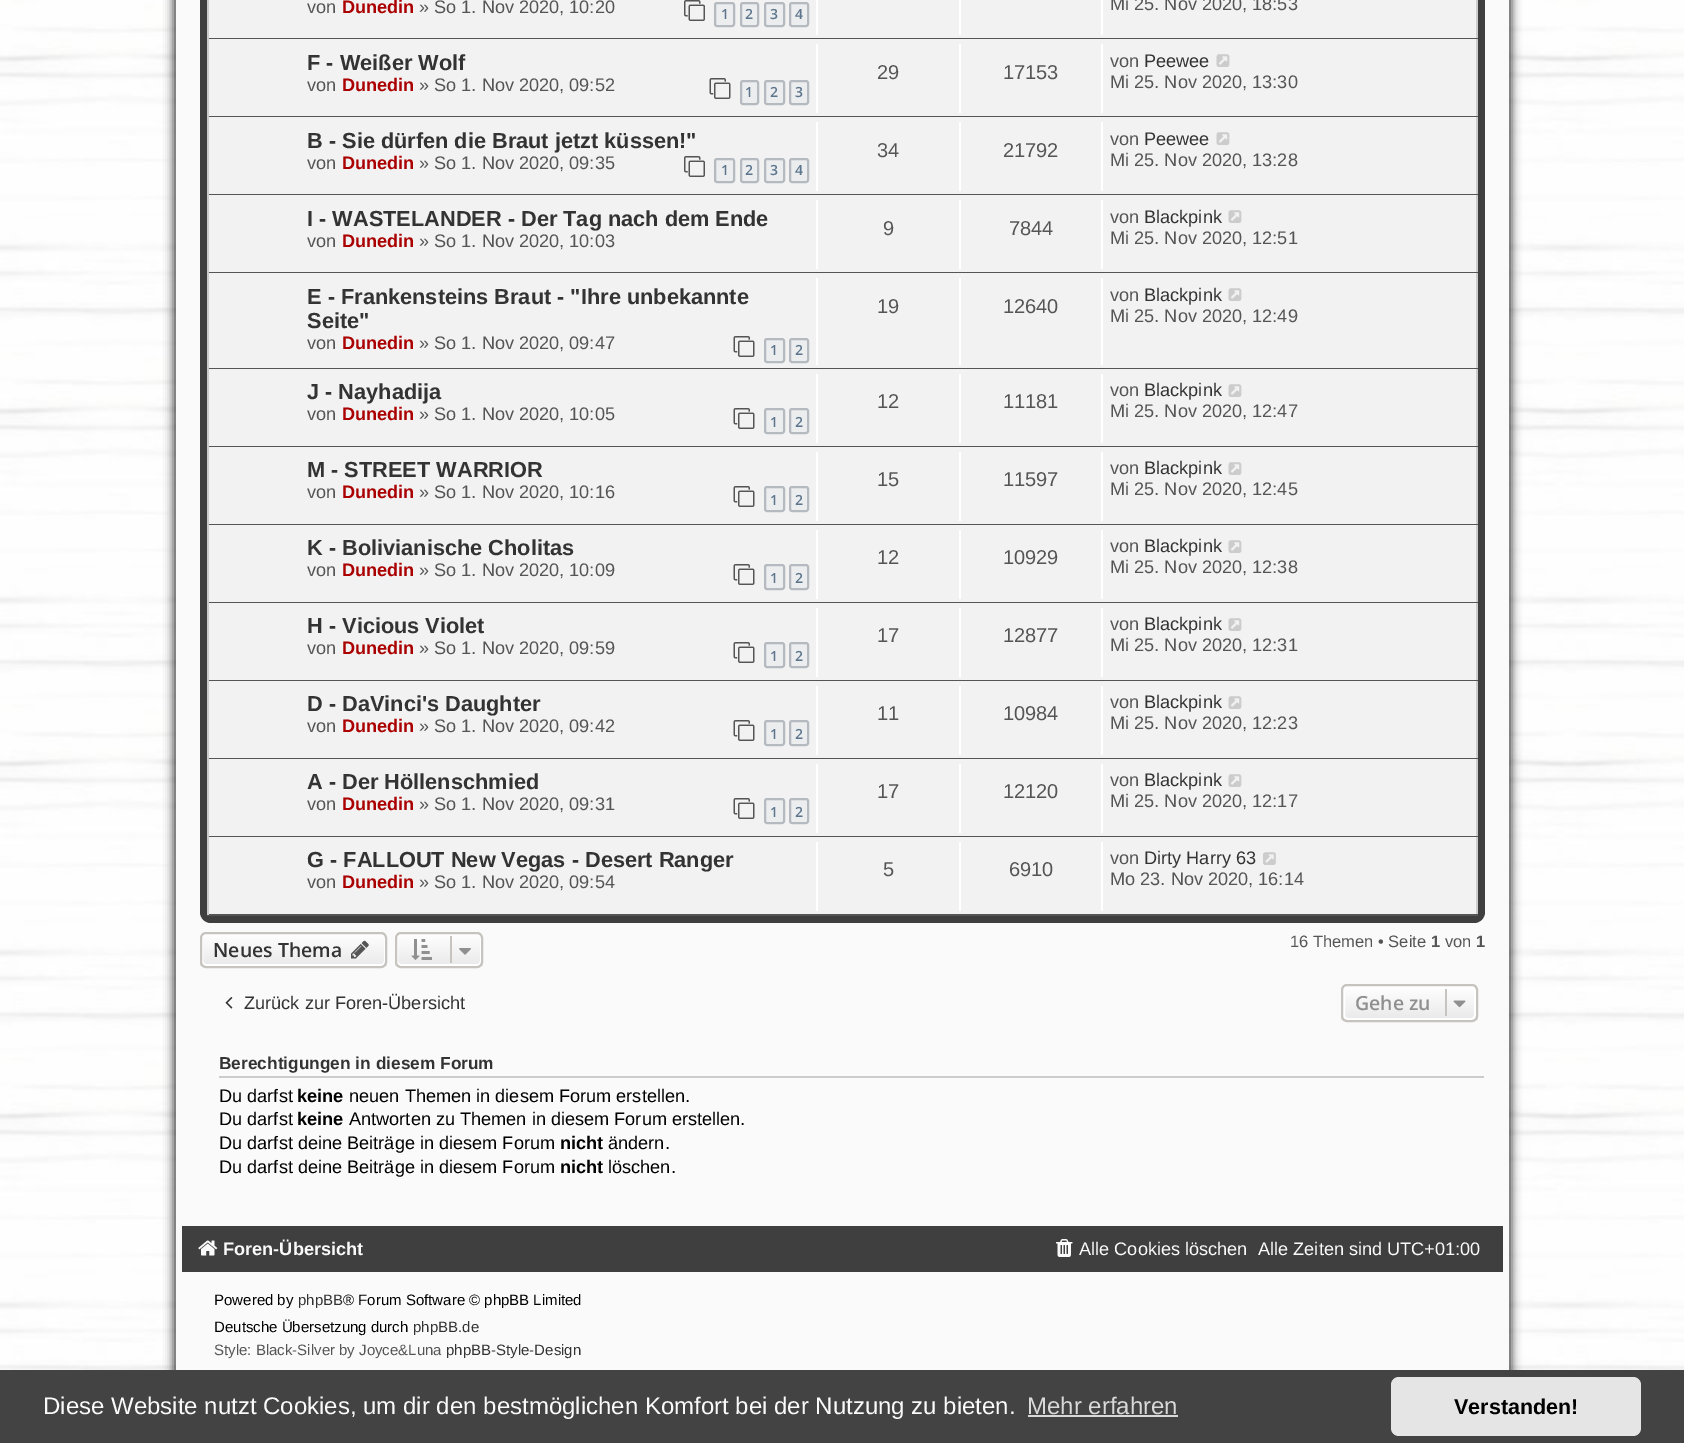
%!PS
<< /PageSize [1684 1443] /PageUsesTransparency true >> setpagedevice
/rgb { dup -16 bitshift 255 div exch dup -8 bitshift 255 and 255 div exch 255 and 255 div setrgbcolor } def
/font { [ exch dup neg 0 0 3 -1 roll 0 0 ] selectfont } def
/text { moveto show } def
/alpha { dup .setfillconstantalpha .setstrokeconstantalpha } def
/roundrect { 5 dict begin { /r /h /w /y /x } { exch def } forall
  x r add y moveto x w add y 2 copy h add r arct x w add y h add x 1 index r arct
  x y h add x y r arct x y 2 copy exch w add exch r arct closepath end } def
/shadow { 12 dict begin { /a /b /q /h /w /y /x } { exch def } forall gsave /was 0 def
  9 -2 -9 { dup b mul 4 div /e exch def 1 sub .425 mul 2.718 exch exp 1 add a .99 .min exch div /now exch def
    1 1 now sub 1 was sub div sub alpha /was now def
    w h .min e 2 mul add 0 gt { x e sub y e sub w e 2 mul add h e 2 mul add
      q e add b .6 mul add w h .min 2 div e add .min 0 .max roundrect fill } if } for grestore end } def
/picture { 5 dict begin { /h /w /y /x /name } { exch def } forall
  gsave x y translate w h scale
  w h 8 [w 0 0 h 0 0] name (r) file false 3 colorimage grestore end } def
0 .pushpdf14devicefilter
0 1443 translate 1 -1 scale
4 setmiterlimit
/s1 { /LiberationSans-Regular 18.15 font 16#555555 rgb } def
/s2 { /LiberationSans-Bold 18.15 font 16#AA0000 rgb } def
/s3 { /OpenSans-SemiBold 14 font 16#5C758C rgb } def
/s4 { /LiberationSans-Bold 21.75 font 16#333333 rgb } def
/s5 { /LiberationSans-Regular 20 font 16#555555 rgb } def
/s6 { /LiberationSans-Regular 18.15 font 16#333333 rgb } def
/s7 { /OpenSans-SemiBold 19.5 font 16#333333 rgb } def
/s8 { /LiberationSans-Regular 16.5 font 16#555555 rgb } def
/s9 { /LiberationSans-Bold 16.5 font 16#555555 rgb } def
/s10 { /OpenSans-SemiBold 19.5 font 16#8F8F8F rgb } def
/s11 { /LiberationSans-Bold 17.3 font 16#333333 rgb } def
/s12 { /LiberationSans-Regular 18.15 font 16#000000 rgb } def
/s13 { /LiberationSans-Bold 18.15 font 16#000000 rgb } def
/s14 { /LiberationSans-Bold 18.15 font 16#FAFAFA rgb } def
/s15 { /LiberationSans-Regular 18.15 font 16#FAFAFA rgb } def
/s16 { /LiberationSans-Regular 15 font 16#000000 rgb } def
/s17 { /LiberationSans-Regular 15 font 16#333333 rgb } def
/s18 { /LiberationSans-Regular 15 font 16#555555 rgb } def
/s19 { /LiberationSans-Regular 24 font 16#FAFAFA rgb } def
/s20 { /LiberationSans-Regular 24 font 16#D9D9D9 rgb } def
/s21 { /LiberationSans-Bold 21.5 font 16#000000 rgb } def
16#FFFFFF rgb
0 0 1684 1443 rectfill
(pic1.raw) 0 0 1684 1370 picture
16#020202 rgb
173 -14 1339 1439 0 4.5 0.7 shadow
16#FAFAFA rgb
176 0 1333 1370 rectfill
16#3F3F3F rgb
200 -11 1285 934 11 roundrect fill
16#F2F2F2 rgb
209 0 1267 38 rectfill
16#CCCCCC rgb
1476 0 2 915 rectfill
16#555555 rgb
207 38 1271 1 rectfill
16#CCCCCC rgb
207 0 2 39 rectfill
s1
(von) 307 13 text
s2
(Dunedin) 342 13 text
s1
(» So 1. Nov 2020, 10:20) 419 13 text
(pic2.raw) 684 0 21 21 picture
16#ECEDEE rgb
715 3 19 23 2 roundrect gsave fill grestore
16#B4BAC0 rgb
2 setlinewidth
stroke
s3
(1) 721 19 text
16#ECEDEE rgb
741 3 17 23 2 roundrect gsave fill grestore
16#B4BAC0 rgb
stroke
s3
(2) 745 19 text
16#ECEDEE rgb
765 3 19 23 2 roundrect gsave fill grestore
16#B4BAC0 rgb
stroke
s3
(3) 770 19 text
16#ECEDEE rgb
790 3 18 23 2 roundrect gsave fill grestore
16#B4BAC0 rgb
stroke
s3
(4) 795 19 text
16#FFFFFF rgb
816 0 2 35 rectfill
959 0 2 35 rectfill
1101 0 2 35 rectfill
s1
(Mi 25. Nov 2020, 18:53) 1110 10 text
16#F2F2F2 rgb
209 39 1267 77 rectfill
16#555555 rgb
207 116 1271 1 rectfill
16#CCCCCC rgb
207 39 2 78 rectfill
s4
(F - Weißer Wolf) 307 70 text
s1
(von) 307 91 text
s2
(Dunedin) 342 91 text
s1
(» So 1. Nov 2020, 09:52) 419 91 text
(pic3.raw) 709 78 22 21 picture
16#ECEDEE rgb
741 81 17 23 2 roundrect gsave fill grestore
16#B4BAC0 rgb
stroke
s3
(1) 745 97 text
16#ECEDEE rgb
765 81 19 23 2 roundrect gsave fill grestore
16#B4BAC0 rgb
stroke
s3
(2) 770 97 text
16#ECEDEE rgb
790 81 18 23 2 roundrect gsave fill grestore
16#B4BAC0 rgb
stroke
s3
(3) 795 97 text
16#FFFFFF rgb
816 44 2 69 rectfill
s5
(29) 877 79 text
16#FFFFFF rgb
959 44 2 69 rectfill
s5
(17153) 1003 79 text
16#FFFFFF rgb
1101 44 2 69 rectfill
s1
(von) 1110 67 text
s6
(Peewee) 1144 67 text
(pic4.raw) 1216 54 14 13 picture
s1
(Mi 25. Nov 2020, 13:30) 1110 88 text
16#F2F2F2 rgb
209 117 1267 77 rectfill
16#555555 rgb
207 194 1271 1 rectfill
16#CCCCCC rgb
207 117 2 78 rectfill
s4
(B - Sie dürfen die Braut jetzt küssen!") 307 148 text
s1
(von) 307 169 text
s2
(Dunedin) 342 169 text
s1
(» So 1. Nov 2020, 09:35) 419 169 text
(pic2.raw) 684 156 21 21 picture
16#ECEDEE rgb
715 159 19 23 2 roundrect gsave fill grestore
16#B4BAC0 rgb
stroke
s3
(1) 721 175 text
16#ECEDEE rgb
741 159 17 23 2 roundrect gsave fill grestore
16#B4BAC0 rgb
stroke
s3
(2) 745 175 text
16#ECEDEE rgb
765 159 19 23 2 roundrect gsave fill grestore
16#B4BAC0 rgb
stroke
s3
(3) 770 175 text
16#ECEDEE rgb
790 159 18 23 2 roundrect gsave fill grestore
16#B4BAC0 rgb
stroke
s3
(4) 795 175 text
16#FFFFFF rgb
816 122 2 69 rectfill
s5
(34) 877 157 text
16#FFFFFF rgb
959 122 2 69 rectfill
s5
(21792) 1003 157 text
16#FFFFFF rgb
1101 122 2 69 rectfill
s1
(von) 1110 145 text
s6
(Peewee) 1144 145 text
(pic4.raw) 1216 132 14 13 picture
s1
(Mi 25. Nov 2020, 13:28) 1110 166 text
16#F2F2F2 rgb
209 195 1267 77 rectfill
16#555555 rgb
207 272 1271 1 rectfill
16#CCCCCC rgb
207 195 2 78 rectfill
s4
(I - WASTELANDER - Der Tag nach dem Ende) 307 226 text
s1
(von) 307 247 text
s2
(Dunedin) 342 247 text
s1
(» So 1. Nov 2020, 10:03) 419 247 text
16#FFFFFF rgb
816 200 2 69 rectfill
s5
(9) 883 235 text
16#FFFFFF rgb
959 200 2 69 rectfill
s5
(7844) 1009 235 text
16#FFFFFF rgb
1101 200 2 69 rectfill
s1
(von) 1110 223 text
s6
(Blackpink) 1144 223 text
(pic4.raw) 1228 210 14 13 picture
s1
(Mi 25. Nov 2020, 12:51) 1110 244 text
16#F2F2F2 rgb
209 273 1267 95 rectfill
16#555555 rgb
207 368 1271 1 rectfill
16#CCCCCC rgb
207 273 2 96 rectfill
s4
(E - Frankensteins Braut - "Ihre unbekannte) 307 304 text
(Seite") 307 328 text
s1
(von) 307 349 text
s2
(Dunedin) 342 349 text
s1
(» So 1. Nov 2020, 09:47) 419 349 text
(pic3.raw) 733 336 22 21 picture
16#ECEDEE rgb
765 339 19 23 2 roundrect gsave fill grestore
16#B4BAC0 rgb
stroke
s3
(1) 770 355 text
16#ECEDEE rgb
790 339 18 23 2 roundrect gsave fill grestore
16#B4BAC0 rgb
stroke
s3
(2) 795 355 text
16#FFFFFF rgb
816 278 2 87 rectfill
s5
(19) 877 313 text
16#FFFFFF rgb
959 278 2 87 rectfill
s5
(12640) 1003 313 text
16#FFFFFF rgb
1101 278 2 87 rectfill
s1
(von) 1110 301 text
s6
(Blackpink) 1144 301 text
(pic4.raw) 1228 288 14 13 picture
s1
(Mi 25. Nov 2020, 12:49) 1110 322 text
16#F2F2F2 rgb
209 369 1267 77 rectfill
16#555555 rgb
207 446 1271 1 rectfill
16#CCCCCC rgb
207 369 2 78 rectfill
s4
(J - Nayhadija) 307 399 text
s1
(von) 307 420 text
s2
(Dunedin) 342 420 text
s1
(» So 1. Nov 2020, 10:05) 419 420 text
(pic3.raw) 733 408 22 21 picture
16#ECEDEE rgb
765 409 19 24 2 roundrect gsave fill grestore
16#B4BAC0 rgb
stroke
s3
(1) 770 427 text
16#ECEDEE rgb
790 409 18 24 2 roundrect gsave fill grestore
16#B4BAC0 rgb
stroke
s3
(2) 795 427 text
16#FFFFFF rgb
816 374 2 69 rectfill
s5
(12) 877 408 text
16#FFFFFF rgb
959 374 2 69 rectfill
s5
(11181) 1003 408 text
16#FFFFFF rgb
1101 374 2 69 rectfill
s1
(von) 1110 396 text
s6
(Blackpink) 1144 396 text
(pic4.raw) 1228 384 14 13 picture
s1
(Mi 25. Nov 2020, 12:47) 1110 417 text
16#F2F2F2 rgb
209 447 1267 77 rectfill
16#555555 rgb
207 524 1271 1 rectfill
16#CCCCCC rgb
207 447 2 78 rectfill
s4
(M - STREET WARRIOR) 307 477 text
s1
(von) 307 498 text
s2
(Dunedin) 342 498 text
s1
(» So 1. Nov 2020, 10:16) 419 498 text
(pic3.raw) 733 486 22 21 picture
16#ECEDEE rgb
765 487 19 24 2 roundrect gsave fill grestore
16#B4BAC0 rgb
stroke
s3
(1) 770 505 text
16#ECEDEE rgb
790 487 18 24 2 roundrect gsave fill grestore
16#B4BAC0 rgb
stroke
s3
(2) 795 505 text
16#FFFFFF rgb
816 452 2 69 rectfill
s5
(15) 877 486 text
16#FFFFFF rgb
959 452 2 69 rectfill
s5
(11597) 1003 486 text
16#FFFFFF rgb
1101 452 2 69 rectfill
s1
(von) 1110 474 text
s6
(Blackpink) 1144 474 text
(pic4.raw) 1228 462 14 13 picture
s1
(Mi 25. Nov 2020, 12:45) 1110 495 text
16#F2F2F2 rgb
209 525 1267 77 rectfill
16#555555 rgb
207 602 1271 1 rectfill
16#CCCCCC rgb
207 525 2 78 rectfill
s4
(K - Bolivianische Cholitas) 307 555 text
s1
(von) 307 576 text
s2
(Dunedin) 342 576 text
s1
(» So 1. Nov 2020, 10:09) 419 576 text
(pic3.raw) 733 564 22 21 picture
16#ECEDEE rgb
765 565 19 24 2 roundrect gsave fill grestore
16#B4BAC0 rgb
stroke
s3
(1) 770 583 text
16#ECEDEE rgb
790 565 18 24 2 roundrect gsave fill grestore
16#B4BAC0 rgb
stroke
s3
(2) 795 583 text
16#FFFFFF rgb
816 530 2 69 rectfill
s5
(12) 877 564 text
16#FFFFFF rgb
959 530 2 69 rectfill
s5
(10929) 1003 564 text
16#FFFFFF rgb
1101 530 2 69 rectfill
s1
(von) 1110 552 text
s6
(Blackpink) 1144 552 text
(pic4.raw) 1228 540 14 13 picture
s1
(Mi 25. Nov 2020, 12:38) 1110 573 text
16#F2F2F2 rgb
209 603 1267 77 rectfill
16#555555 rgb
207 680 1271 1 rectfill
16#CCCCCC rgb
207 603 2 78 rectfill
s4
(H - Vicious Violet) 307 633 text
s1
(von) 307 654 text
s2
(Dunedin) 342 654 text
s1
(» So 1. Nov 2020, 09:59) 419 654 text
(pic3.raw) 733 642 22 21 picture
16#ECEDEE rgb
765 643 19 24 2 roundrect gsave fill grestore
16#B4BAC0 rgb
stroke
s3
(1) 770 661 text
16#ECEDEE rgb
790 643 18 24 2 roundrect gsave fill grestore
16#B4BAC0 rgb
stroke
s3
(2) 795 661 text
16#FFFFFF rgb
816 608 2 69 rectfill
s5
(17) 877 642 text
16#FFFFFF rgb
959 608 2 69 rectfill
s5
(12877) 1003 642 text
16#FFFFFF rgb
1101 608 2 69 rectfill
s1
(von) 1110 630 text
s6
(Blackpink) 1144 630 text
(pic4.raw) 1228 618 14 13 picture
s1
(Mi 25. Nov 2020, 12:31) 1110 651 text
16#F2F2F2 rgb
209 681 1267 77 rectfill
16#555555 rgb
207 758 1271 1 rectfill
16#CCCCCC rgb
207 681 2 78 rectfill
s4
(D - DaVinci's Daughter) 307 711 text
s1
(von) 307 732 text
s2
(Dunedin) 342 732 text
s1
(» So 1. Nov 2020, 09:42) 419 732 text
(pic3.raw) 733 720 22 21 picture
16#ECEDEE rgb
765 721 19 24 2 roundrect gsave fill grestore
16#B4BAC0 rgb
stroke
s3
(1) 770 739 text
16#ECEDEE rgb
790 721 18 24 2 roundrect gsave fill grestore
16#B4BAC0 rgb
stroke
s3
(2) 795 739 text
16#FFFFFF rgb
816 686 2 69 rectfill
s5
(11) 877 720 text
16#FFFFFF rgb
959 686 2 69 rectfill
s5
(10984) 1003 720 text
16#FFFFFF rgb
1101 686 2 69 rectfill
s1
(von) 1110 708 text
s6
(Blackpink) 1144 708 text
(pic4.raw) 1228 696 14 13 picture
s1
(Mi 25. Nov 2020, 12:23) 1110 729 text
16#F2F2F2 rgb
209 759 1267 77 rectfill
16#555555 rgb
207 836 1271 1 rectfill
16#CCCCCC rgb
207 759 2 78 rectfill
s4
(A - Der Höllenschmied) 307 789 text
s1
(von) 307 810 text
s2
(Dunedin) 342 810 text
s1
(» So 1. Nov 2020, 09:31) 419 810 text
(pic3.raw) 733 798 22 21 picture
16#ECEDEE rgb
765 799 19 24 2 roundrect gsave fill grestore
16#B4BAC0 rgb
stroke
s3
(1) 770 817 text
16#ECEDEE rgb
790 799 18 24 2 roundrect gsave fill grestore
16#B4BAC0 rgb
stroke
s3
(2) 795 817 text
16#FFFFFF rgb
816 764 2 69 rectfill
s5
(17) 877 798 text
16#FFFFFF rgb
959 764 2 69 rectfill
s5
(12120) 1003 798 text
16#FFFFFF rgb
1101 764 2 69 rectfill
s1
(von) 1110 786 text
s6
(Blackpink) 1144 786 text
(pic4.raw) 1228 774 14 13 picture
s1
(Mi 25. Nov 2020, 12:17) 1110 807 text
16#F2F2F2 rgb
209 837 1267 77 rectfill
16#555555 rgb
207 914 1271 2 rectfill
16#CCCCCC rgb
207 837 2 78 rectfill
s4
(G - FALLOUT New Vegas - Desert Ranger) 307 867 text
s1
(von) 307 888 text
s2
(Dunedin) 342 888 text
s1
(» So 1. Nov 2020, 09:54) 419 888 text
16#FFFFFF rgb
816 842 2 69 rectfill
s5
(5) 883 876 text
16#FFFFFF rgb
959 842 2 69 rectfill
s5
(6910) 1009 876 text
16#FFFFFF rgb
1101 842 2 69 rectfill
s1
(von) 1110 864 text
s6
(Dirty Harry 63) 1144 864 text
(pic5.raw) 1263 852 13 13 picture
s1
(Mo 23. Nov 2020, 16:14) 1110 885 text
gsave
200 932 187 36 6 roundrect clip newpath
gsave 200 933 moveto 387 933 lineto 387 966 lineto 200 966 lineto closepath clip newpath
<< /ShadingType 2 /ColorSpace /DeviceRGB /Coords [293 933 293 966] /Extend [true true] /Function << /FunctionType 2 /Domain [0 1] /C0 [1 1 1] /C1 [0.914 0.914 0.914] /N 1 >> >> shfill grestore
grestore
16#FFFFFF rgb
202 934 183 31 4 roundrect stroke
16#C7C3BF rgb
201 933 185 34 5 roundrect stroke
s7
(Neues Thema) 213 957 text
(pic6.raw) 351 940 18 19 picture
gsave
395 932 88 36 6 roundrect clip newpath
gsave 395 933 moveto 483 933 lineto 483 966 lineto 395 966 lineto closepath clip newpath
<< /ShadingType 2 /ColorSpace /DeviceRGB /Coords [439 933 439 966] /Extend [true true] /Function << /FunctionType 2 /Domain [0 1] /C0 [1 1 1] /C1 [0.914 0.914 0.914] /N 1 >> >> shfill grestore
grestore
16#FFFFFF rgb
397 934 84 31 4 roundrect stroke
16#C7C3BF rgb
396 933 86 34 5 roundrect stroke
(pic7.raw) 411 939 21 21 picture
450 936 2 27 rectfill
(pic8.raw) 459 948 12 7 picture
s8
(16 Themen • Seite) 1290 947 text
s9
(1) 1431 947 text
s8
(von) 1445 947 text
s9
(1) 1476 947 text
(pic9.raw) 225 997 8 12 picture
s6
(Zurück zur Foren-Übersicht) 244 1009 text
gsave
1341 984 137 38 6 roundrect clip newpath
gsave 1341 986 moveto 1478 986 lineto 1478 1020 lineto 1341 1020 lineto closepath clip newpath
<< /ShadingType 2 /ColorSpace /DeviceRGB /Coords [1409 986 1409 1020] /Extend [true true] /Function << /FunctionType 2 /Domain [0 1] /C0 [1 1 1] /C1 [0.914 0.914 0.914] /N 1 >> >> shfill grestore
grestore
16#FFFFFF rgb
1344 987 131 32 4 roundrect stroke
16#C7C3BF rgb
1342 985 135 36 5 roundrect stroke
s10
(Gehe zu) 1355 1010 text
16#C7C3BF rgb
1445 989 2 27 rectfill
(pic10.raw) 1453 1000 13 8 picture
16#CCCCCC rgb
219 1076 1265 2 rectfill
s11
(Berechtigungen in diesem Forum) 219 1069 text
s12
(Du darfst) 219 1102 text
s13
(keine) 297 1102 text
s12
(neuen Themen in diesem Forum erstellen.) 349 1102 text
(Du darfst) 219 1125 text
s13
(keine) 297 1125 text
s12
(Antworten zu Themen in diesem Forum erstellen.) 349 1125 text
(Du darfst deine Beiträge in diesem Forum) 219 1149 text
s13
(nicht) 560 1149 text
s12
(ändern.) 608 1149 text
(Du darfst deine Beiträge in diesem Forum) 219 1173 text
s13
(nicht) 560 1173 text
s12
(löschen.) 608 1173 text
16#3F3F3F rgb
182 1226 1321 46 rectfill
(pic11.raw) 198 1240 20 16 picture
s14
(Foren-Übersicht) 223 1255 text
(pic12.raw) 1056 1239 17 18 picture
s15
(Alle Cookies löschen) 1079 1255 text
(Alle Zeiten sind UTC+01:00) 1258 1255 text
s16
(Powered by) 214 1305 text
s17
(phpBB) 298 1305 text
s16
(® Forum Software © phpBB Limited) 343 1305 text
(Deutsche Übersetzung durch) 214 1332 text
s17
(phpBB.de) 413 1332 text
s18
(Style: Black-Silver by Joyce&Luna) 214 1355 text
s17
(phpBB-Style-Design) 446 1355 text
16#434343 rgb
0 1370 1684 73 rectfill
s19
(Diese Website nutzt Cookies, um dir den bestmöglichen Komfort bei der Nutzung zu bieten.) 43 1414 text
s20
(Mehr erfahren) 1027 1414 text
1028 1415 150 2 rectfill
16#E5E5E5 rgb
1391 1377 250 59 8 roundrect fill
s21
(Verstanden!) 1454 1414 text
.poppdf14devicefilter showpage
